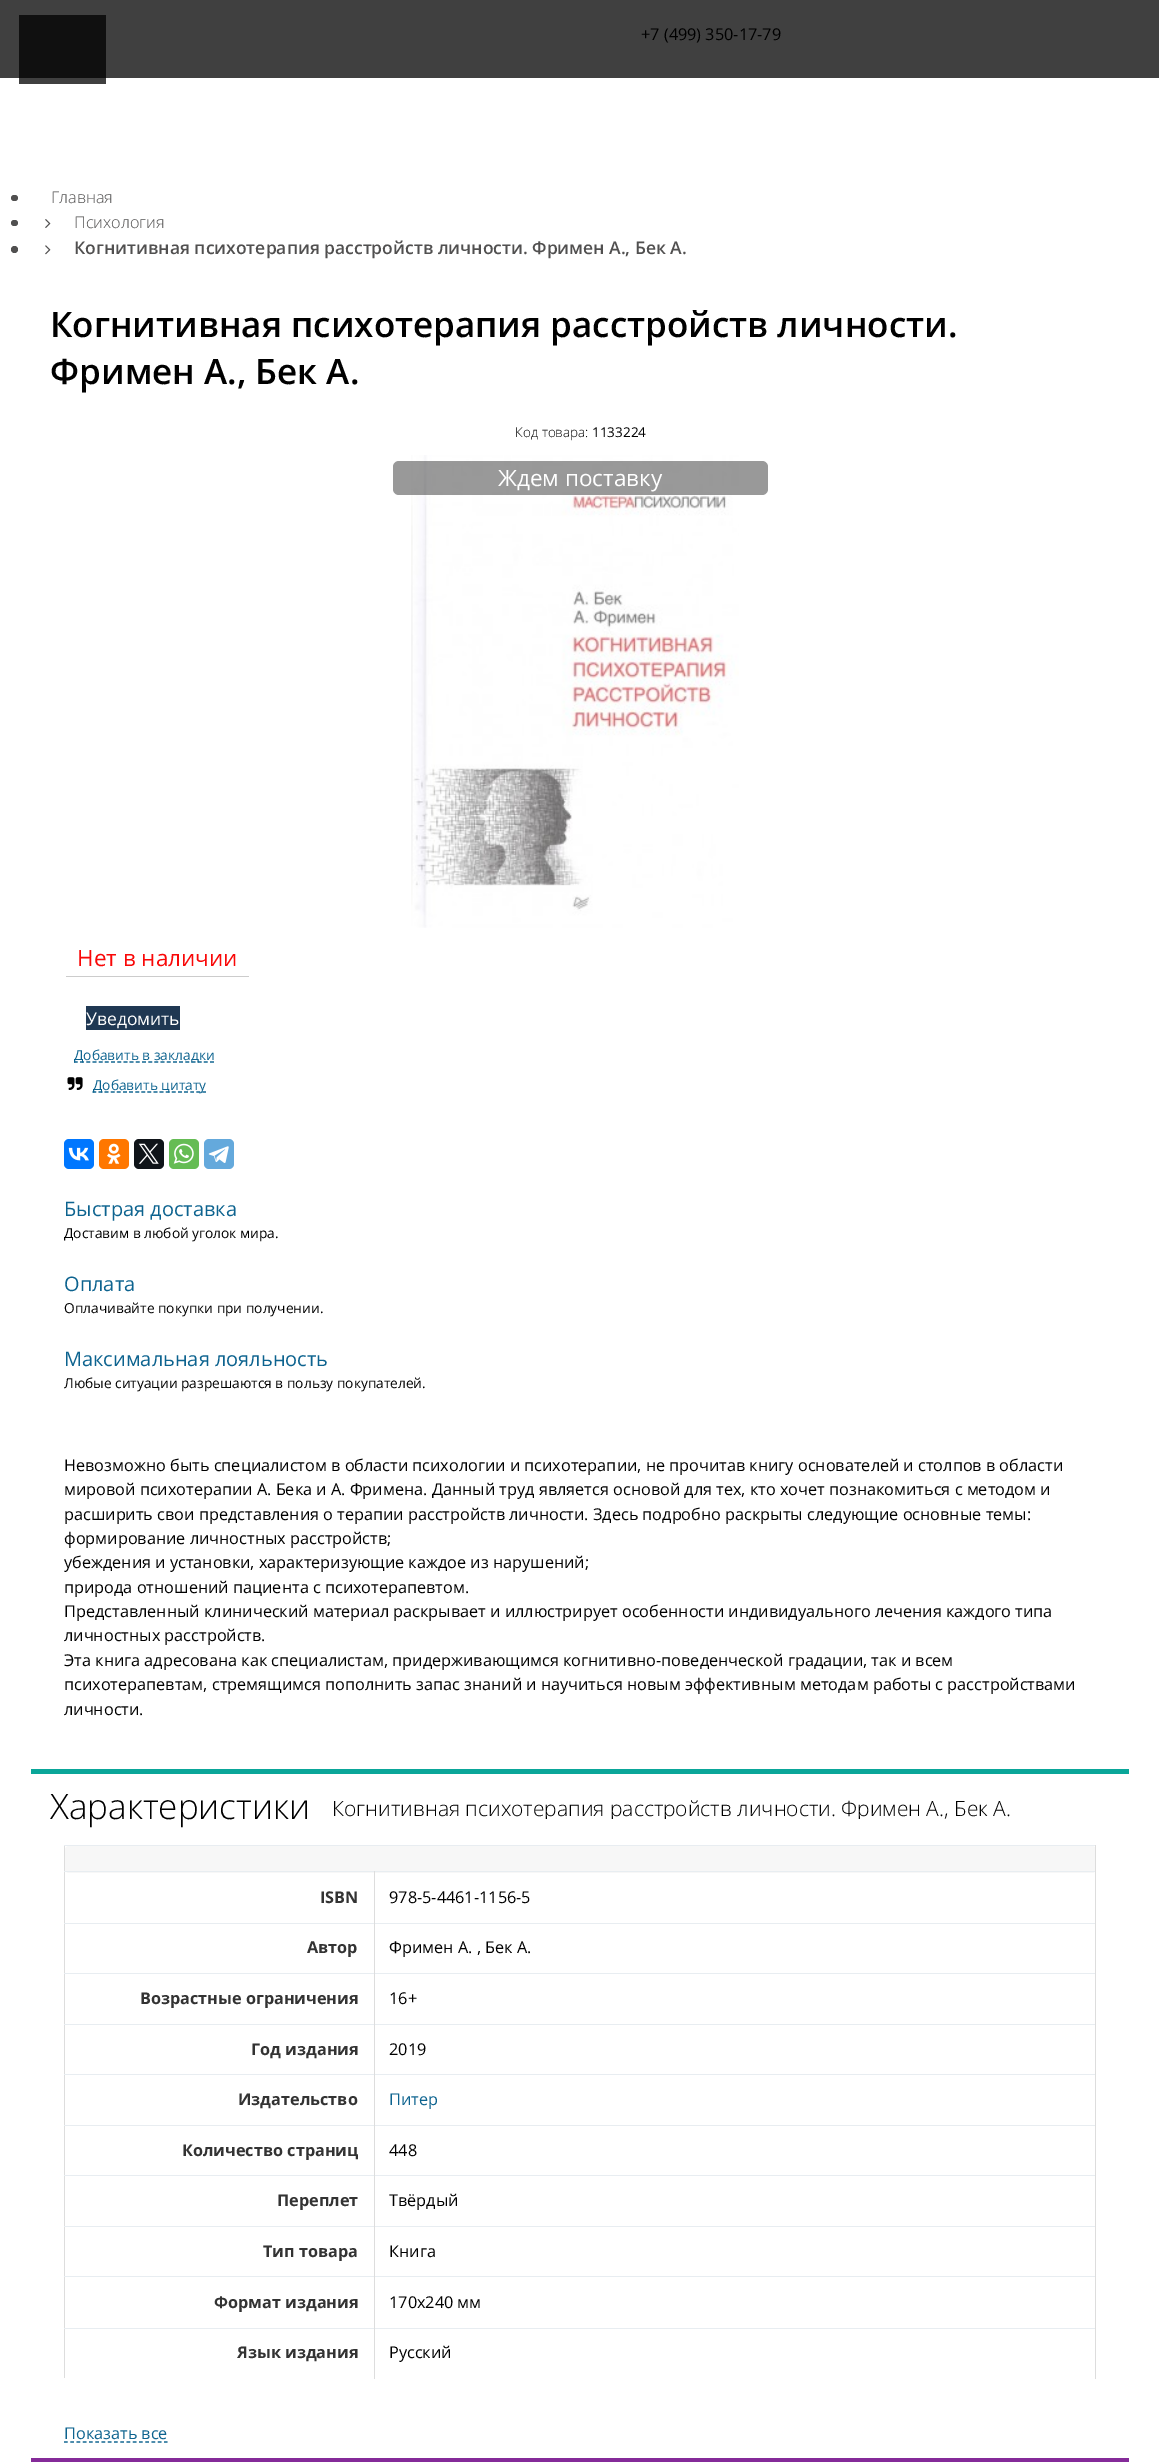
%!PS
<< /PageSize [1159 2462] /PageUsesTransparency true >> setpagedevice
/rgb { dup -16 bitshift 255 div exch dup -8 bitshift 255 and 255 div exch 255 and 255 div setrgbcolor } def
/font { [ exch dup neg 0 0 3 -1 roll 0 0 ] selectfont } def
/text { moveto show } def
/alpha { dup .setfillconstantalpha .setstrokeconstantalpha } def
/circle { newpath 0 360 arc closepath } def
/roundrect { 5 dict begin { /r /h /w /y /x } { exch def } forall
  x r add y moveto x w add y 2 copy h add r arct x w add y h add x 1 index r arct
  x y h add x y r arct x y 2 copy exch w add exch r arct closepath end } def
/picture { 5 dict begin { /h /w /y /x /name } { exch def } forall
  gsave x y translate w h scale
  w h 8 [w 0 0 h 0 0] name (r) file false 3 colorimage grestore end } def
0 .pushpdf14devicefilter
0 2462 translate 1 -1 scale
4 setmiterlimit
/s1 { /OpenSans-Regular 16.25 font 16#000000 rgb } def
/s2 { /OpenSans-Light 16.25 font 16#515050 rgb } def
/s3 { /OpenSans-SemiBold 17.5 font 16#515050 rgb } def
/s4 { /OpenSans-SemiBold 35 font 16#000000 rgb } def
/s5 { /OpenSans-Light 13.5 font 16#000000 rgb } def
/s6 { /OpenSans-Regular 13.5 font 16#000000 rgb } def
/s7 { /OpenSans-Regular 22.5 font 16#FFFFFF rgb } def
/s8 { /OpenSans-Regular 22.5 font 16#F90808 rgb } def
/s9 { /OpenSans-Regular 17.5 font 16#FFFFFF rgb } def
/s10 { /OpenSans-Regular 13.75 font 16#0D638F rgb } def
/s11 { /OpenSans-Regular 20 font 16#0D638F rgb } def
/s12 { /OpenSans-Regular 13.75 font 16#000000 rgb } def
/s13 { /OpenSans-Light 35 font 16#000000 rgb } def
/s14 { /OpenSans-Light 21.05 font 16#000000 rgb } def
/s15 { /OpenSans-Bold 16.25 font 16#333333 rgb } def
/s16 { /OpenSans-Regular 16.25 font 16#0D638F rgb } def
16#FFFFFF rgb
0 0 1159 2462 rectfill
16#404040 rgb
0 0 1159 78 rectfill
16#101010 rgb
19 15 87 63 rectfill
s1
(+7 \(499\) 350-17-79) 641 40 text
16#404040 rgb
19 78 87 6 rectfill
16#515050 rgb
11 195 7 6 3 roundrect fill
s2
(Главная) 51 203 text
11 220 7 6 3 roundrect fill
(pic1.raw) 45 219 6 9 picture
(Психология) 74 228 text
14.5 249.5 3.5 circle fill
(pic2.raw) 45 245 6 10 picture
s3
(Когнитивная психотерапия расстройств личности. Фримен А., Бек А.) 74 254 text
s4
(Когнитивная психотерапия расстройств личности.) 50 337 text
(Фримен А., Бек А.) 50 384 text
s5
(Код товара:) 515 437 text
s6
(1133224) 592 437 text
(pic3.raw) 411 455 328 473 picture
0.4 alpha
393 461 375 34 6 roundrect fill
1 alpha
s7
(Ждем поставку) 498 486 text
16#CCCCCC rgb
66 976 183 1 rectfill
s8
(Нет в наличии) 77 966 text
16#1F3853 rgb
86 1006 94 24 rectfill
s9
(Уведомить) 86 1025 text
16#0D638F rgb
1.2 setlinewidth
[3.75 2.44] 0 setdash
74 1062 moveto 214 1062 lineto stroke
s10
(Добавить в закладки) 74 1060 text
(pic4.raw) 67 1077 16 13 picture
[3.75 2.36] 0 setdash
92.5 1092 moveto 206 1092 lineto stroke
(Добавить цитату) 93 1090 text
16#0077FF rgb
64 1139 30 30 5 roundrect fill
(pic5.raw) 68 1147 21 14 picture
16#FF7700 rgb
99 1139 30 30 5 roundrect fill
(pic6.raw) 107 1143 14 21 picture
16#0F1419 rgb
134 1139 30 30 5 roundrect fill
(pic7.raw) 138 1143 21 21 picture
16#65BC54 rgb
169 1139 30 30 5 roundrect fill
(pic8.raw) 173 1143 21 21 picture
16#64A9DC rgb
204 1139 30 30 5 roundrect fill
(pic9.raw) 208 1146 21 17 picture
s11
(Быстрая доставка) 64 1216 text
s12
(Доставим в любой уголок мира.) 64 1238 text
s11
(Оплата) 64 1291 text
s12
(Оплачивайте покупки при получении.) 64 1313 text
s11
(Максимальная лояльность) 64 1366 text
s12
(Любые ситуации разрешаются в пользу покупателей.) 64 1388 text
s1
(Невозможно быть специалистом в области психологии и психотерапии, не прочитав книгу основателей и столпов в области) 64 1471 text
(мировой психотерапии А. Бека и А. Фримена. Данный труд является основой для тех, кто хочет познакомиться с методом и) 64 1495 text
(расширить свои представления о терапии расстройств личности. Здесь подробно раскрыты следующие основные темы:) 64 1520 text
(формирование личностных расстройств;) 64 1544 text
(убеждения и установки, характеризующие каждое из нарушений;) 64 1568 text
(природа отношений пациента с психотерапевтом.) 64 1593 text
(Представленный клинический материал раскрывает и иллюстрирует особенности индивидуального лечения каждого типа) 64 1617 text
(личностных расстройств.) 64 1641 text
(Эта книга адресована как специалистам, придерживающимся когнитивно-поведенческой градации, так и всем) 64 1666 text
(психотерапевтам, стремящимся пополнить запас знаний и научиться новым эффективным методам работы с расстройствами) 64 1690 text
(личности.) 64 1715 text
16#0AA699 rgb
31 1769 1098 5 rectfill
s13
(Характеристики) 50 1819 text
gsave
333 1788 678 31 rectclip
s14
(Когнитивная психотерапия расстройств личности. Фримен А., Бек А.) 332 1816 text
grestore
16#DDDDDD rgb
64 1845 1 533 rectfill
16#F7F7F7 rgb
65 1846 1031 27 4 roundrect fill
16#E8EDF1 rgb
64 1845 1032 1 rectfill
64 1871 1032 1 rectfill
64 1923 1032 1 rectfill
64 1973 1032 1 rectfill
64 2024 1032 1 rectfill
64 2074 1032 1 rectfill
64 2125 1032 1 rectfill
64 2175 1032 1 rectfill
64 2226 1032 1 rectfill
64 2276 1032 1 rectfill
64 2328 1032 1 rectfill
16#DDDDDD rgb
1095 2328 1 51 rectfill
1095 2276 1 53 rectfill
1095 2226 1 52 rectfill
1095 2175 1 53 rectfill
1095 2125 1 51 rectfill
1095 2074 1 52 rectfill
1095 2024 1 51 rectfill
1095 1973 1 52 rectfill
1095 1923 1 51 rectfill
1095 1871 1 53 rectfill
1095 1845 1 28 rectfill
374 2328 1 51 rectfill
374 2276 1 53 rectfill
374 2226 1 52 rectfill
374 2175 1 53 rectfill
374 2125 1 51 rectfill
374 2074 1 52 rectfill
374 2024 1 51 rectfill
374 1973 1 52 rectfill
374 1923 1 51 rectfill
374 1871 1 53 rectfill
s15
(ISBN) 320 1903 text
s1
(978-5-4461-1156-5) 389 1903 text
s15
(Автор) 307 1953 text
s1
(Фримен А. , Бек А.) 389 1953 text
s15
(Возрастные ограничения) 140 2004 text
s1
(16+) 389 2004 text
s15
(Год издания) 251 2055 text
s1
(2019) 389 2055 text
s15
(Издательство) 238 2105 text
s16
(Питер) 389 2105 text
s15
(Количество страниц) 182 2156 text
s1
(448) 389 2156 text
s15
(Переплет) 277 2206 text
s1
(Твёрдый) 389 2206 text
s15
(Тип товара) 263 2257 text
s1
(Книга) 389 2257 text
s15
(Формат издания) 214 2308 text
s1
(170x240 мм) 389 2308 text
s15
(Язык издания) 237 2358 text
s1
(Русский) 389 2358 text
16#0D638F rgb
[3.75 2.5] 0 setdash
64 2442 moveto 167.5 2442 lineto stroke
(Показать все) 64 2439 text
16#852B99 rgb
31 2458 1098 4 rectfill
.poppdf14devicefilter showpage
